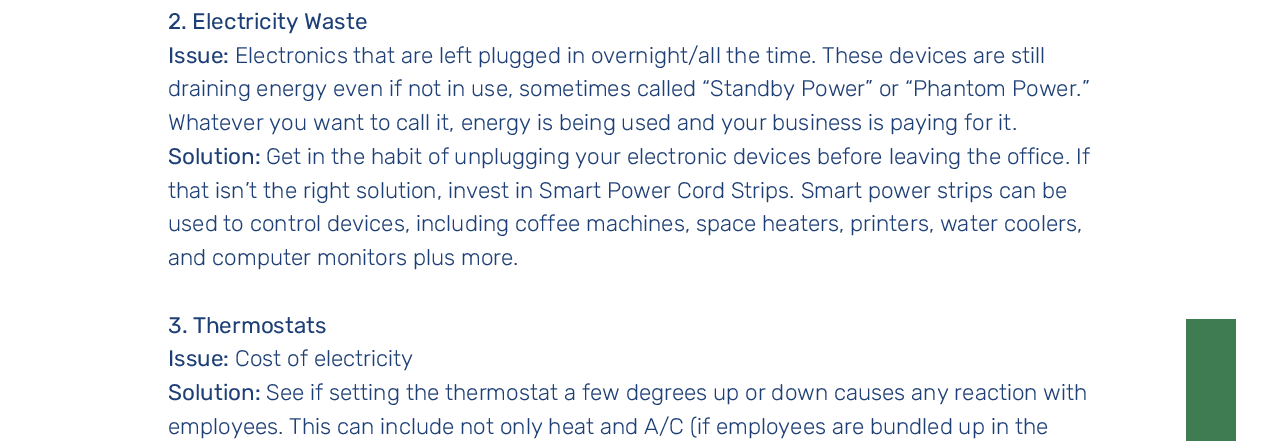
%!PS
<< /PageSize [1261 441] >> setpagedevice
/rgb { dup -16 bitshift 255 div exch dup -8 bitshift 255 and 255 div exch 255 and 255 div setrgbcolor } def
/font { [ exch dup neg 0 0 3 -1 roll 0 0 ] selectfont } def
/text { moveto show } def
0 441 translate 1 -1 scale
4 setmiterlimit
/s1 { /Rubik-Regular 22.5 font 16#1E3F75 rgb } def
/s2 { /Rubik-Light 22.5 font 16#1E3F75 rgb } def
16#FFFFFF rgb
0 0 1261 441 rectfill
s1
(2. Electricity Waste) 168 29 text
(Issue:) 168 63 text
s2
(Electronics that are left plugged in overnight/all the time. These devices are still) 235 63 text
(draining energy even if not in use, sometimes called “Standby Power” or “Phantom Power.”) 168 96 text
(Whatever you want to call it, energy is being used and your business is paying for it.) 168 130 text
s1
(Solution:) 168 164 text
s2
(Get in the habit of unplugging your electronic devices before leaving the office. If) 266 164 text
(that isn’t the right solution, invest in Smart Power Cord Strips. Smart power strips can be) 168 198 text
(used to control devices, including coffee machines, space heaters, printers, water coolers,) 168 231 text
(and computer monitors plus more.) 168 265 text
s1
(3. Thermostats) 168 333 text
(Issue:) 168 366 text
s2
(Cost of electricity) 235 366 text
s1
(Solution:) 168 400 text
s2
(See if setting the thermostat a few degrees up or down causes any reaction with) 266 400 text
(employees. This can include not only heat and A/C \(if employees are bundled up in the) 168 434 text
16#407C51 rgb
1186 319 50 122 rectfill
showpage
